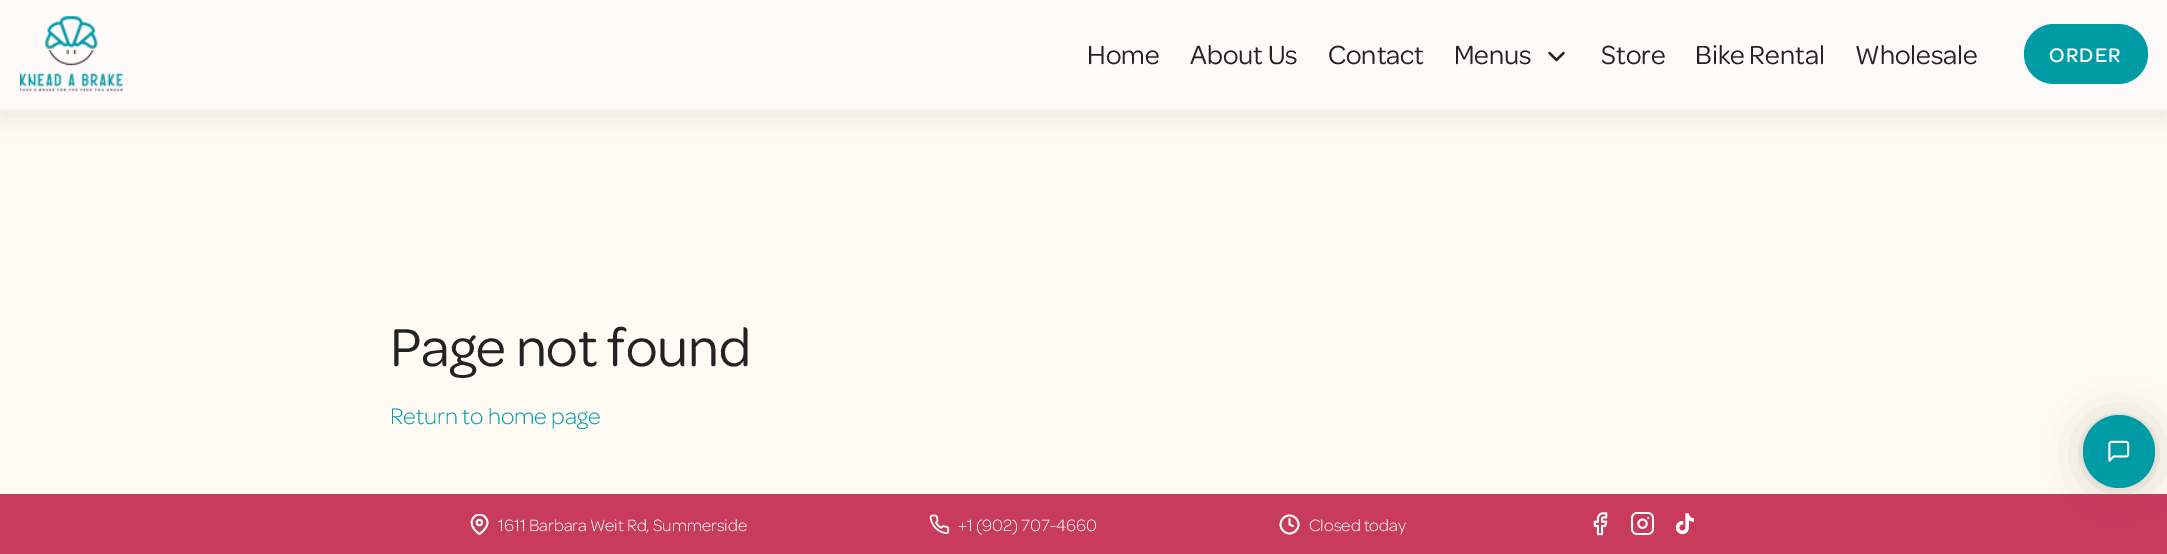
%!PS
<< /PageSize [2167 554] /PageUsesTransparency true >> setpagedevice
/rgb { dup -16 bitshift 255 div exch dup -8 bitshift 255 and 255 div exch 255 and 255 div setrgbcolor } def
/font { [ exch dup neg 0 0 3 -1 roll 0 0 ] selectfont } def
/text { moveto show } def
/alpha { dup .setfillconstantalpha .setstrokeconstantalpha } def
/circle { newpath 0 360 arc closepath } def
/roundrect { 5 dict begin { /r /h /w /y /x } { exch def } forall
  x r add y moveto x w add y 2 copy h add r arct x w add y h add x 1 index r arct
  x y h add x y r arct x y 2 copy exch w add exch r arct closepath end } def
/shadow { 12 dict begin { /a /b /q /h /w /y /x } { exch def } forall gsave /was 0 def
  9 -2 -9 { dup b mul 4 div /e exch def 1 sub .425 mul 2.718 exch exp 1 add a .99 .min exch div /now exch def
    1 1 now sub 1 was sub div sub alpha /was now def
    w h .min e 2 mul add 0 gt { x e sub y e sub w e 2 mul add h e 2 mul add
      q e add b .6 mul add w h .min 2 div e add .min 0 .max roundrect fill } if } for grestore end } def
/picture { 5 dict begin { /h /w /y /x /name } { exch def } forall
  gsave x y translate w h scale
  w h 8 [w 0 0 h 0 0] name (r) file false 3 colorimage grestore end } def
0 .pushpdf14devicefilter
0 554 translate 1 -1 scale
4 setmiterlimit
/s1 { /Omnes-Regular 28 font 16#222323 rgb } def
/s2 { /Omnes-Regular 57 font 16#222323 rgb } def
/s3 { /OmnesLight-Light 24 font 16#009CA6 rgb } def
/s4 { /OmnesLight-Light 17.5 font 16#FFFFFF rgb } def
16#FFFAF2 rgb
0 0 2167 554 rectfill
16#000000 rgb
0 3 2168 110 0 15 0.1 shadow
16#FFFAFA rgb
0 0 2167 109 rectfill
16#F8F4F4 rgb
0 109 2167 1 rectfill
(pic1.raw) 20 16 103 76 picture
s1
(Home) 1087 64 text
(About Us) 1190 64 text
(Contact) 1328 64 text
(Menus) 1454 64 text
2.3 setlinewidth
1 setlinecap
1 setlinejoin
1549.5 53 moveto 1556.5 60 lineto 1563.5 53 lineto stroke
(Store) 1601 64 text
(Bike Rental) 1695 64 text
(Wholesale) 1855 64 text
16#009CA6 rgb
2024 24 124 60 30 roundrect fill
/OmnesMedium-Medium 21 font
16#FFFFFF rgb
2049 62 moveto 1.25 0 (ORDER) ashow
s2
(Page not found) 390 366 text
s3
(Return to home page) 390 424 text
16#000000 rgb
2083 418 72 72 36 20 0.16 shadow
2083 416 72 73 36 4 0.06 shadow
16#009CA6 rgb
2083 415 72 73 36 roundrect fill
(pic2.raw) 2108 440 22 22 picture
0.9 alpha
16#C2264B rgb
0 494 2167 60 rectfill
gsave
469 514 21 21 rectclip
1 alpha
16#FFFFFF rgb
1.8 setlinewidth
487.5 522.5 moveto 487.5 529 479.5 534 479.5 534 curveto 462.5 523 477 508.5 485 517 curveto 486.5 518.5 487.5 520.5 487.5 522.5 curveto closepath stroke
grestore
1 alpha
16#FFFFFF rgb
1.8 setlinewidth
0 setlinecap
0 setlinejoin
479.4 522.6 2.7 circle stroke
s4
(1611 Barbara Weit Rd, Summerside) 498 531 text
(pic3.raw) 929 514 21 21 picture
(+1 \(902\) 707-4660) 958 531 text
1289.5 524.5 9 circle stroke
1 setlinecap
1 setlinejoin
1289.5 519 moveto 1289.5 524.5 lineto 1293 526 lineto stroke
(Closed today) 1309 531 text
(pic4.raw) 1593 512 15 24 picture
(pic5.raw) 1631 512 23 23 picture
(pic6.raw) 1675 513 19 22 picture
.poppdf14devicefilter showpage
